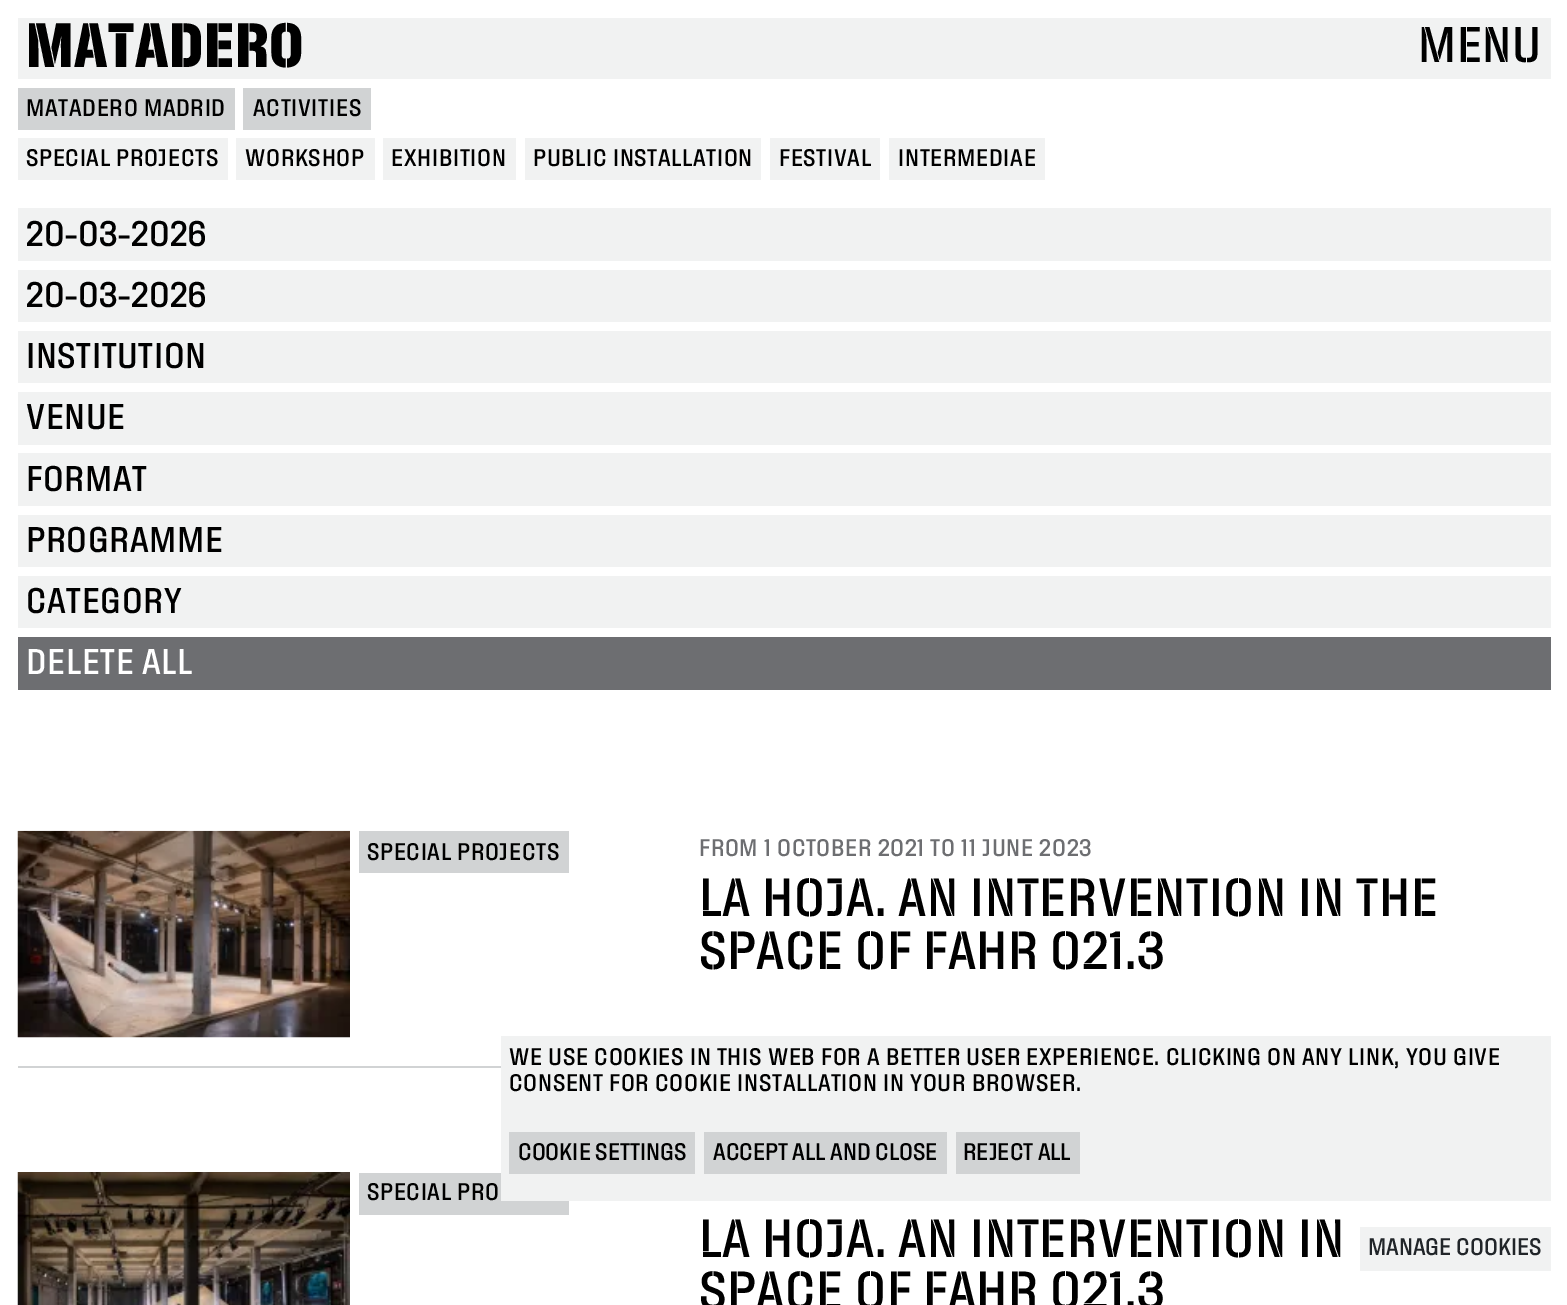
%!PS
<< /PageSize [1567 1305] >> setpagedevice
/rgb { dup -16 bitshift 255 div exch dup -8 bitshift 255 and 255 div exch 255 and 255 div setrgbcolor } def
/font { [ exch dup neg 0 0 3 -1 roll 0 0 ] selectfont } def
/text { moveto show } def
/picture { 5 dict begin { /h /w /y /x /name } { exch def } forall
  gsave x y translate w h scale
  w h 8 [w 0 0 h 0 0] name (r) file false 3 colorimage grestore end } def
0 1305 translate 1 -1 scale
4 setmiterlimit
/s1 { /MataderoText-Medium 35 font 16#000000 rgb } def
/s2 { /MataderoText-Medium 23.6 font 16#000000 rgb } def
/s3 { /MataderoText-Medium 23.6 font 16#212529 rgb } def
16#FFFFFF rgb
0 0 1567 1305 rectfill
16#F1F2F2 rgb
18 18 1533 61 rectfill
/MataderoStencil-Bold 61.25 font
16#000000 rgb
26 67 moveto 0.7 0 (MATADERO) ashow
/MataderoStencil-Medium 49 font
1418 62 moveto 0.7 0 (MENU) ashow
16#D1D3D4 rgb
18 88 217 42 rectfill
/MataderoText-Medium 23.6 font
16#000000 rgb
26 116 moveto 0.7 0 (MATADERO MADRID) ashow
16#D1D3D4 rgb
243 88 128 42 rectfill
16#000000 rgb
253 116 moveto 0.7 0 (ACTIVITIES) ashow
16#F1F2F2 rgb
18 138 210 42 rectfill
16#000000 rgb
26 166 moveto 0.7 0 (SPECIAL PROJECTS) ashow
16#F1F2F2 rgb
236 138 139 42 rectfill
16#000000 rgb
245 166 moveto 0.7 0 (WORKSHOP) ashow
16#F1F2F2 rgb
383 138 133 42 rectfill
16#000000 rgb
391 166 moveto 0.7 0 (EXHIBITION) ashow
16#F1F2F2 rgb
525 138 236 42 rectfill
16#000000 rgb
533 166 moveto 0.7 0 (PUBLIC INSTALLATION) ashow
16#F1F2F2 rgb
770 138 110 42 rectfill
16#000000 rgb
779 166 moveto 0.7 0 (FESTIVAL) ashow
16#F1F2F2 rgb
889 138 156 42 rectfill
16#000000 rgb
898 166 moveto 0.7 0 (INTERMEDIAE) ashow
16#F1F2F2 rgb
18 208 1533 53 rectfill
s1
(20-03-2026) 26 246 text
16#F1F2F2 rgb
18 270 1533 52 rectfill
s1
(20-03-2026) 26 307 text
16#F1F2F2 rgb
18 331 1533 52 rectfill
16#000000 rgb
26 368 moveto 0.7 0 (INSTITUTION) ashow
16#F1F2F2 rgb
18 392 1533 53 rectfill
16#000000 rgb
26 429 moveto 0.7 0 (VENUE) ashow
16#F1F2F2 rgb
18 453 1533 53 rectfill
16#000000 rgb
26 491 moveto 0.7 0 (FORMAT) ashow
16#F1F2F2 rgb
18 515 1533 52 rectfill
16#000000 rgb
26 552 moveto 0.7 0 (PROGRAMME) ashow
16#F1F2F2 rgb
18 576 1533 52 rectfill
16#000000 rgb
26 613 moveto 0.7 0 (CATEGORY) ashow
16#6D6E71 rgb
18 637 1533 53 rectfill
16#FFFFFF rgb
26 674 moveto 0.7 0 (DELETE ALL) ashow
16#D1D3D4 rgb
18 1066 483 2 rectfill
(pic1.raw) 17 830 333 208 picture
359 831 210 42 rectfill
/MataderoText-Medium 23.6 font
16#000000 rgb
367 860 moveto 0.7 0 (SPECIAL PROJECTS) ashow
16#6D6E71 rgb
699 856 moveto 0.7 0 (FROM 1 OCTOBER 2021 TO 11 JUNE 2023) ashow
/MataderoStencil-Medium 52.5 font
16#000000 rgb
699 916 moveto 0.7 0 (LA HOJA. AN INTERVENTION IN THE) ashow
699 969 moveto 0.7 0 (SPACE OF FAHR 021.3) ashow
(pic2.raw) 17 1172 333 133 picture
16#D1D3D4 rgb
359 1173 210 42 rectfill
/MataderoText-Medium 23.6 font
16#000000 rgb
367 1200 moveto 0.7 0 (SPECIAL PRO) ashow
/MataderoStencil-Medium 52.5 font
699 1257 moveto 0.7 0 (LA HOJA. AN INTERVENTION IN) ashow
699 1309 moveto 0.7 0 (SPACE OF FAHR 021.3) ashow
16#F1F2F2 rgb
501 1036 1050 165 rectfill
/MataderoText-Medium 23.6 font
16#000000 rgb
509 1065 moveto 0.7 0 (WE USE COOKIES IN THIS WEB FOR A BETTER USER EXPERIENCE. CLICKING ON ANY LINK, YOU GIVE) ashow
509 1091 moveto 0.7 0 (CONSENT FOR COOKIE INSTALLATION IN YOUR BROWSER.) ashow
16#D1D3D4 rgb
509 1132 186 42 rectfill
s2
(COOKIE SETTINGS) 518 1160 text
16#D1D3D4 rgb
704 1132 243 42 rectfill
s2
(ACCEPT ALL AND CLOSE) 713 1160 text
16#D1D3D4 rgb
956 1132 124 42 rectfill
s2
(REJECT ALL) 963 1160 text
16#F1F2F2 rgb
1360 1227 191 44 rectfill
s3
(MANAGE COOKIES) 1368 1255 text
showpage
